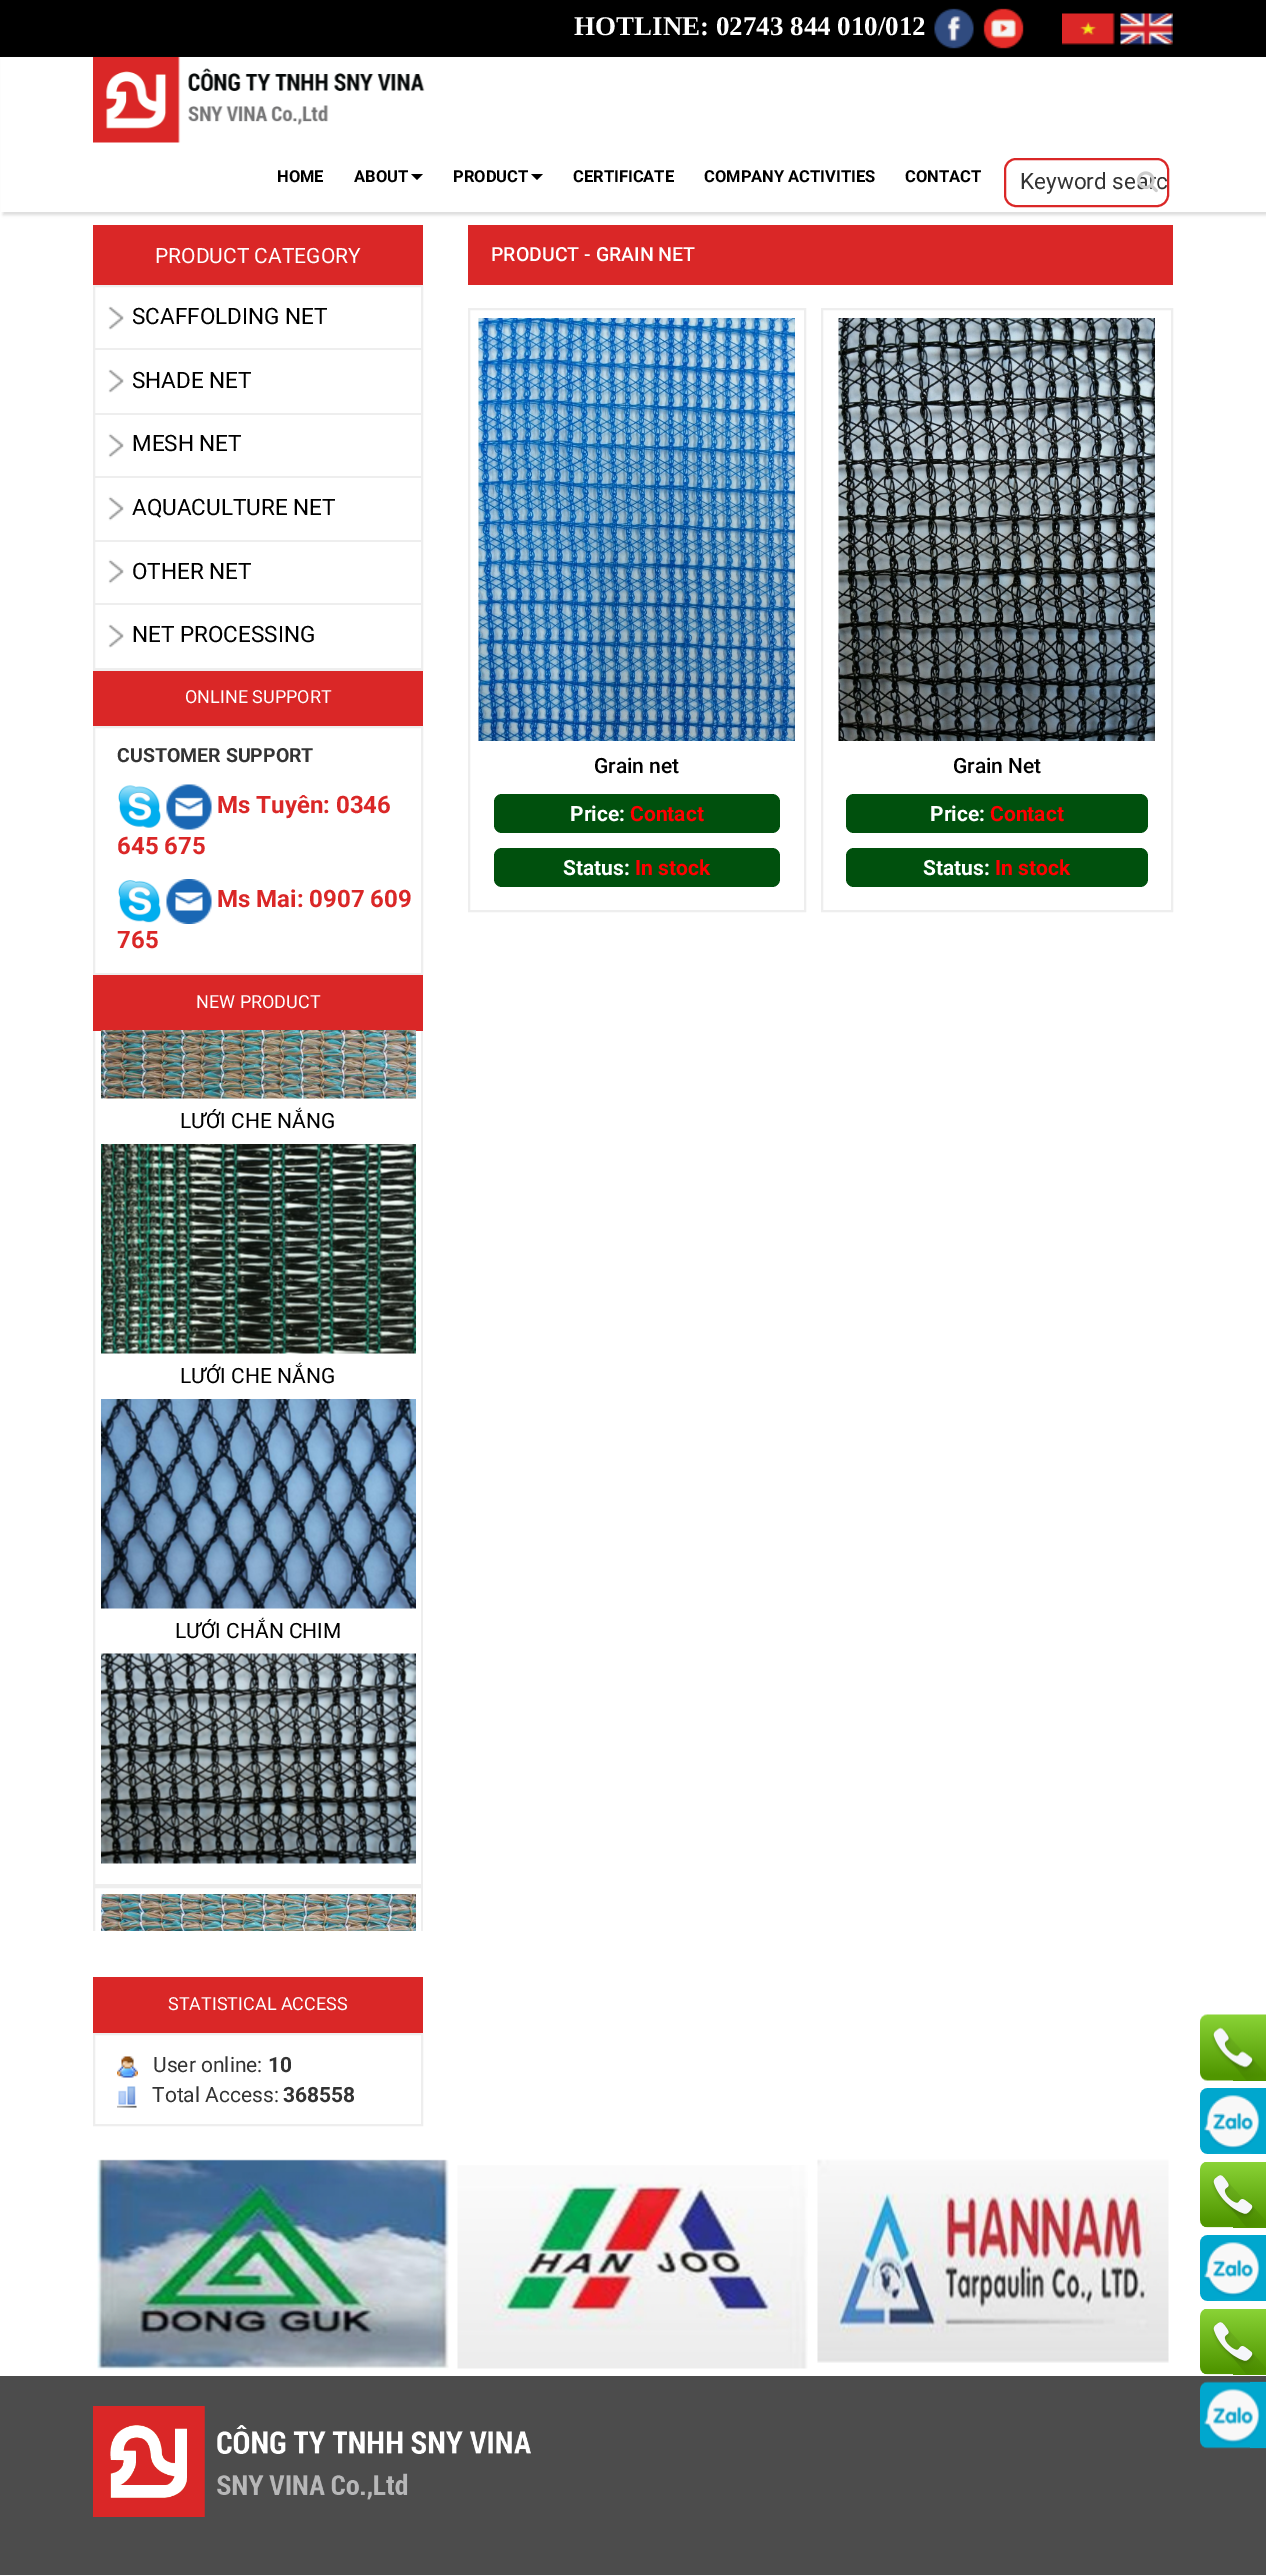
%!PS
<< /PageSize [1266 2575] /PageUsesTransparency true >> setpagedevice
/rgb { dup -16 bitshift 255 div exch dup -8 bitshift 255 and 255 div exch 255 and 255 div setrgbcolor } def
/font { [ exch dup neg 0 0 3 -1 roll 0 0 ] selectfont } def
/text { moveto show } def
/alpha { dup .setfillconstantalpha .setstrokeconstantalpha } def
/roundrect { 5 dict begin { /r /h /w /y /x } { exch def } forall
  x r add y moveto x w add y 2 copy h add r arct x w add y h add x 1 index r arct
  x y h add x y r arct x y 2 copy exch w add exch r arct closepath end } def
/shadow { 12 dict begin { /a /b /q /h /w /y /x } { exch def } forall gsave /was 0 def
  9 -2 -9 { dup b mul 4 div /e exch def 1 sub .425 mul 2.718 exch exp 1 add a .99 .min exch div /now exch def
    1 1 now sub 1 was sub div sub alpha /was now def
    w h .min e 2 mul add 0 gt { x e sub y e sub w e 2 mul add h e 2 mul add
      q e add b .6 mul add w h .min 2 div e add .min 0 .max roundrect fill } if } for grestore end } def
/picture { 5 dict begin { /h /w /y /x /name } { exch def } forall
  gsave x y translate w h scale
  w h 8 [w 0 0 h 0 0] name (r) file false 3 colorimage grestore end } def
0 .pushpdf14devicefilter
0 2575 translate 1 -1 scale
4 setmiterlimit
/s1 { /LiberationSerif-Bold 27 font 16#FFFFFF rgb } def
/s2 { /Roboto-Bold 16.5 font 16#000000 rgb } def
/s3 { /Roboto-Regular 22.5 font 16#333333 rgb } def
/s4 { /Roboto-Regular 21 font 16#FFFFFF rgb } def
/s5 { /Roboto-Regular 22.5 font 16#000000 rgb } def
/s6 { /Roboto-Regular 18 font 16#FFFFFF rgb } def
/s7 { /Roboto-Bold 19.5 font 16#333333 rgb } def
/s8 { /Roboto-Bold 24 font 16#DA2727 rgb } def
/s9 { /Roboto-Regular 21 font 16#000000 rgb } def
/s10 { /Roboto-Regular 21 font 16#333333 rgb } def
/s11 { /Roboto-Bold 21 font 16#333333 rgb } def
/s12 { /Roboto-Medium 19.5 font 16#FFFFFF rgb } def
/s13 { /Roboto-Medium 21 font 16#000000 rgb } def
/s14 { /Roboto-Bold 21 font 16#FFFFFF rgb } def
/s15 { /Roboto-Bold 21 font 16#FF0000 rgb } def
16#FFFFFF rgb
0 0 1266 2575 rectfill
16#000000 rgb
0 0 1266 57 rectfill
s1
(HOTLINE: 02743 844 010/012) 574 35 text
(pic1.raw) 934 8 40 41 picture
(pic2.raw) 983 8 41 41 picture
(pic3.raw) 1062 13 53 32 picture
(pic4.raw) 1120 13 53 32 picture
16#DDDDDD rgb
3 60 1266 155 0 1.5 1 shadow
16#FFFFFF rgb
1 58 1265 154 rectfill
(pic5.raw) 93 57 332 86 picture
s2
(HOME) 277 182 text
(ABOUT) 354 182 text
411 174 moveto 423 174 lineto 417 180 lineto closepath fill
(PRODUCT) 453 182 text
531 174 moveto 543 174 lineto 537 180 lineto closepath fill
(CERTIFICATE) 573 182 text
(COMPANY ACTIVITIES) 704 182 text
(CONTACT) 905 182 text
16#DA2727 rgb
2 setlinewidth
1005 159 163 47 11 roundrect stroke
s3
(Keyword searc) 1020 189 text
(pic6.raw) 1137 171 21 22 picture
16#DA2727 rgb
93 225 330 60 rectfill
s4
(PRODUCT CATEGORY) 155 263 text
16#EEEEEE rgb
94 286 328 384 rectstroke
(pic7.raw) 108 306 16 24 picture
95 348 327 2 rectfill
s5
(SCAFFOLDING NET) 132 324 text
(pic7.raw) 108 369 16 24 picture
16#EEEEEE rgb
95 413 327 2 rectfill
s5
(SHADE NET) 132 388 text
(pic8.raw) 108 433 16 25 picture
16#EEEEEE rgb
95 476 327 2 rectfill
s5
(MESH NET) 132 451 text
(pic8.raw) 108 496 16 25 picture
16#EEEEEE rgb
95 540 327 2 rectfill
s5
(AQUACULTURE NET) 132 515 text
(pic8.raw) 108 559 16 25 picture
16#EEEEEE rgb
95 603 327 2 rectfill
s5
(OTHER NET) 132 579 text
(pic7.raw) 108 624 16 24 picture
16#EEEEEE rgb
95 668 327 1 rectfill
s5
(NET PROCESSING) 132 642 text
16#DA2727 rgb
93 671 330 55 rectfill
s6
(ONLINE SUPPORT) 185 703 text
16#EEEEEE rgb
94 727 328 247 rectstroke
s7
(CUSTOMER SUPPORT) 117 762 text
(pic9.raw) 118 785 43 43 picture
(pic10.raw) 166 784 46 46 picture
s8
(Ms Tuyên: 0346) 217 813 text
(645 675) 117 854 text
(pic11.raw) 118 880 43 43 picture
(pic12.raw) 166 879 46 45 picture
(Ms Mai: 0907 609) 217 907 text
(765) 117 948 text
93 975 330 56 rectfill
s6
(NEW PRODUCT) 196 1008 text
gsave
93 1031 330 900 rectclip
16#EEEEEE rgb
94 882 328 1003 rectstroke
grestore
(pic13.raw) 101 1030 315 69 picture
s9
(LƯỚI CHE NẮNG) 180 1128 text
(pic14.raw) 101 1144 315 210 picture
(LƯỚI CHE NẮNG) 180 1383 text
(pic15.raw) 101 1399 315 210 picture
(LƯỚI CHẮN CHIM) 175 1638 text
(pic16.raw) 101 1653 315 211 picture
16#EEEEEE rgb
94 2034 328 91 rectstroke
(pic18.raw) 117 2056 21 22 picture
(pic19.raw) 117 2086 20 22 picture
16#4C4C4C rgb
0 2376 1266 199 rectfill
gsave
93 1031 330 900 rectclip
16#EEEEEE rgb
94 1887 328 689 rectstroke
grestore
(pic17.raw) 101 1894 315 37 picture
16#DA2727 rgb
93 1977 330 56 rectfill
s6
(STATISTICAL ACCESS) 168 2010 text
s10
(User online:) 153 2072 text
s11
(10) 268 2072 text
s10
(Total Access:) 152 2102 text
s11
(368558) 283 2102 text
16#DA2727 rgb
468 225 705 60 rectfill
s12
(PRODUCT - GRAIN NET) 491 261 text
16#EEEEEE rgb
469 309 336 602 rectstroke
(pic20.raw) 478 318 317 423 picture
s13
(Grain net) 594 773 text
16#00500D rgb
494 794 286 39 8 roundrect fill
s14
(Price:) 570 821 text
s15
(Contact) 630 821 text
16#00500D rgb
494 848 286 39 8 roundrect fill
s14
(Status:) 563 875 text
s15
(In stock) 635 875 text
16#EEEEEE rgb
822 309 350 602 rectstroke
(pic21.raw) 838 318 317 423 picture
s13
(Grain Net) 953 773 text
16#00500D rgb
846 794 302 39 8 roundrect fill
s14
(Price:) 930 821 text
s15
(Contact) 990 821 text
16#00500D rgb
846 848 302 39 8 roundrect fill
s14
(Status:) 923 875 text
s15
(In stock) 995 875 text
(pic22.raw) 97 2159 352 211 picture
(pic23.raw) 457 2165 351 204 picture
(pic24.raw) 817 2159 352 204 picture
gsave 1233 2080 moveto 1266 2080 lineto 1266 2081 lineto 1233 2081 lineto closepath clip newpath
<< /ShadingType 2 /ColorSpace /DeviceRGB /Coords [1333 2014 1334 2081] /Extend [true true] /Function << /FunctionType 3 /Domain [0 1] /Functions [<< /FunctionType 2 /Domain [0 1] /C0 [0.541 0.827 0.212] /C1 [0.314 0.588 0] /N 1 >> << /FunctionType 2 /Domain [0 1] /C0 [0.314 0.588 0] /C1 [0.314 0.588 0] /N 1 >>] /Bounds [0.92] /Encode [0 1 0 1] >> >> shfill grestore
(pic25.raw) 1200 2014 66 67 picture
(pic26.raw) 1200 2088 66 66 picture
gsave 1233 2227 moveto 1266 2227 lineto 1266 2228 lineto 1233 2228 lineto closepath clip newpath
<< /ShadingType 2 /ColorSpace /DeviceRGB /Coords [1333 2161 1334 2228] /Extend [true true] /Function << /FunctionType 3 /Domain [0 1] /Functions [<< /FunctionType 2 /Domain [0 1] /C0 [0.541 0.827 0.212] /C1 [0.314 0.588 0] /N 1 >> << /FunctionType 2 /Domain [0 1] /C0 [0.314 0.588 0] /C1 [0.314 0.588 0] /N 1 >>] /Bounds [0.92] /Encode [0 1 0 1] >> >> shfill grestore
(pic27.raw) 1200 2162 66 66 picture
(pic26.raw) 1200 2235 66 66 picture
gsave 1233 2374 moveto 1266 2374 lineto 1266 2375 lineto 1233 2375 lineto closepath clip newpath
<< /ShadingType 2 /ColorSpace /DeviceRGB /Coords [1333 2308 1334 2375] /Extend [true true] /Function << /FunctionType 3 /Domain [0 1] /Functions [<< /FunctionType 2 /Domain [0 1] /C0 [0.541 0.827 0.212] /C1 [0.314 0.588 0] /N 1 >> << /FunctionType 2 /Domain [0 1] /C0 [0.314 0.588 0] /C1 [0.314 0.588 0] /N 1 >>] /Bounds [0.92] /Encode [0 1 0 1] >> >> shfill grestore
(pic28.raw) 1200 2309 66 66 picture
16#00A7CE rgb
1250 2382 16 66 rectfill
(pic29.raw) 1200 2381 66 68 picture
(pic30.raw) 93 2406 438 111 picture
.poppdf14devicefilter showpage
